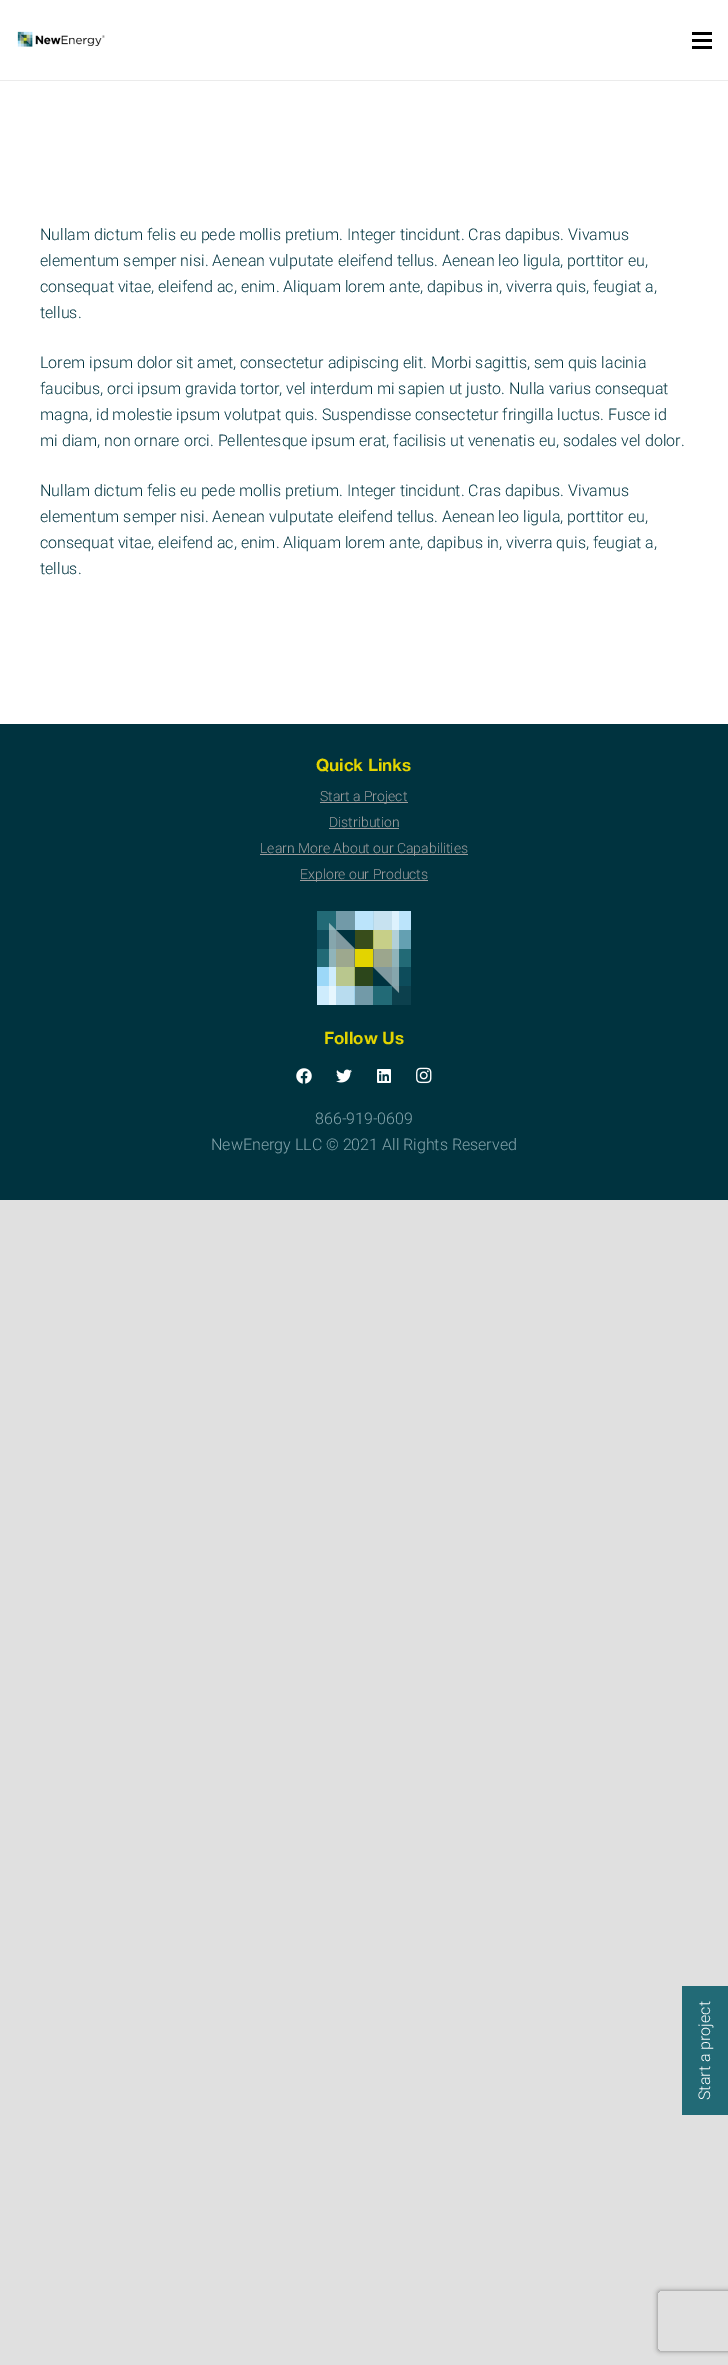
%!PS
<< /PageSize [728 2365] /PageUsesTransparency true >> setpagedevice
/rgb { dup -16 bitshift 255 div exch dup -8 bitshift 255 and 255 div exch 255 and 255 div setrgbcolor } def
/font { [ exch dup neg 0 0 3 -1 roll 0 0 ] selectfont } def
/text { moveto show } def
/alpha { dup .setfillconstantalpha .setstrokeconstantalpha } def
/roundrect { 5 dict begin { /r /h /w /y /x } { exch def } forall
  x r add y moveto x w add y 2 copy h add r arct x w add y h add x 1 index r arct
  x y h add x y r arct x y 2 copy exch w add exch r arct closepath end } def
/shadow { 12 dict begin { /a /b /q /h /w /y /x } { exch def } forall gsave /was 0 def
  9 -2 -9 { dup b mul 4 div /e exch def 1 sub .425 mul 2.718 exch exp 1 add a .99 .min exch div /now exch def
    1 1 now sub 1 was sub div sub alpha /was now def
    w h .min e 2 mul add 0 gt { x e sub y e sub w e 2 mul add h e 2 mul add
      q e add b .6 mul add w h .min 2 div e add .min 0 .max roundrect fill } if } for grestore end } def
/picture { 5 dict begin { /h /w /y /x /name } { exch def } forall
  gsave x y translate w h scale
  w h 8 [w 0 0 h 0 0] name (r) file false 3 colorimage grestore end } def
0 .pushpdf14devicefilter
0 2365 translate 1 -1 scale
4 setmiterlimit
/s1 { /Roboto-Light 16 font 16#00333F rgb } def
/s2 { /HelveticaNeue-Bold 17 font 16#E3D400 rgb } def
/s3 { /Roboto-Light 14 font 16#9E9E9E rgb } def
/s4 { /Roboto-Light 16 font 16#86A6AD rgb } def
16#E0E0E0 rgb
0 0 728 2365 rectfill
16#FFFFFF rgb
0 0 728 724 rectfill
16#EBEBEB rgb
0 80 728 1 rectfill
(pic1.raw) 17 31 88 16 picture
16#000000 rgb
692 39 20 3 rectfill
692 32 20 3 rectfill
692 46 20 3 rectfill
s1
(Nullam dictum felis eu pede mollis pretium. Integer tincidunt. Cras dapibus. Vivamus) 40 240 text
(elementum semper nisi. Aenean vulputate eleifend tellus. Aenean leo ligula, porttitor eu,) 40 266 text
(consequat vitae, eleifend ac, enim. Aliquam lorem ante, dapibus in, viverra quis, feugiat a,) 40 292 text
(tellus.) 40 318 text
(Lorem ipsum dolor sit amet, consectetur adipiscing elit. Morbi sagittis, sem quis lacinia) 40 368 text
(faucibus, orci ipsum gravida tortor, vel interdum mi sapien ut justo. Nulla varius consequat) 40 394 text
(magna, id molestie ipsum volutpat quis. Suspendisse consectetur fringilla luctus. Fusce id) 40 420 text
(mi diam, non ornare orci. Pellentesque ipsum erat, facilisis ut venenatis eu, sodales vel dolor.) 40 446 text
(Nullam dictum felis eu pede mollis pretium. Integer tincidunt. Cras dapibus. Vivamus) 40 496 text
(elementum semper nisi. Aenean vulputate eleifend tellus. Aenean leo ligula, porttitor eu,) 40 522 text
(consequat vitae, eleifend ac, enim. Aliquam lorem ante, dapibus in, viverra quis, feugiat a,) 40 548 text
(tellus.) 40 574 text
0 724 728 476 rectfill
s2
(Quick Links) 316 771 text
16#9E9E9E rgb
320 802 88 1 rectfill
s3
(Start a Project) 320 801 text
(Distribution) 329 827 text
329 828 70 1 rectfill
260 854 208 1 rectfill
(Learn More About our Capabilities) 260 853 text
300 880 128 1 rectfill
(Explore our Products) 300 879 text
(pic2.raw) 317 911 94 94 picture
s2
(Follow Us) 324 1044 text
(pic3.raw) 296 1068 16 16 picture
(pic4.raw) 336 1069 16 14 picture
(pic5.raw) 377 1069 14 14 picture
(pic6.raw) 416 1067 16 17 picture
s4
(866-919-0609) 315 1124 text
(NewEnergy LLC © 2021 All Rights Reserved) 211 1150 text
16#226A76 rgb
682 1986 46 129 rectfill
16#FFFFFF rgb
gsave 710 2100 translate -90 rotate 0 0 moveto (Start a project) show grestore
gsave
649 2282 moveto 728 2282 lineto 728 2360 lineto 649 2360 lineto closepath 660 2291 moveto 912 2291 lineto 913 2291 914 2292 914 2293 curveto 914 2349 lineto 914 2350 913 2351 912 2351 curveto 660 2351 lineto 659 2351 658 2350 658 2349 curveto 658 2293 lineto 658 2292 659 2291 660 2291 curveto closepath eoclip newpath
16#808080 rgb
658 2291 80 60 2 2.5 1 shadow
grestore
.poppdf14devicefilter showpage
